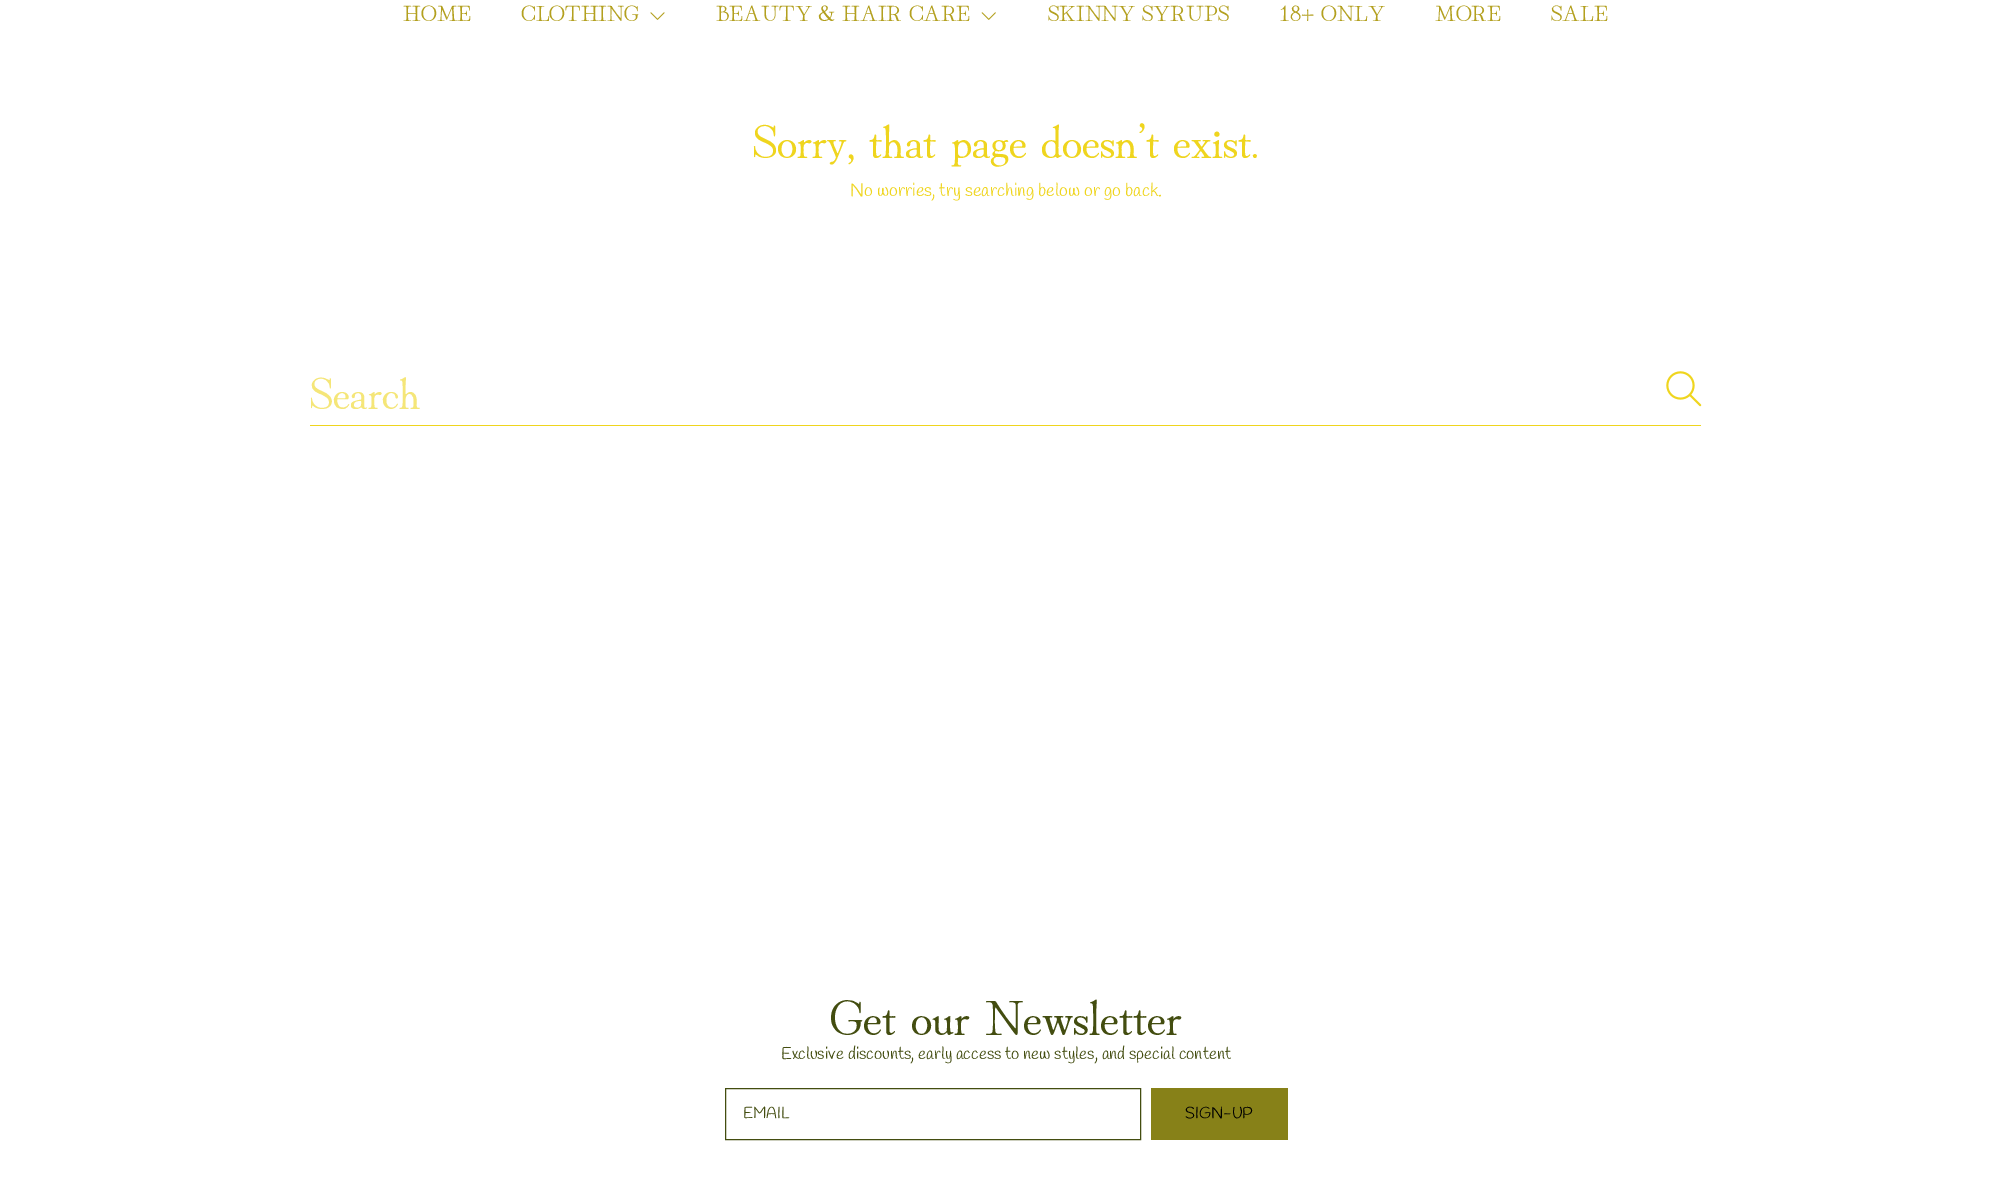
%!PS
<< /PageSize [2011 1198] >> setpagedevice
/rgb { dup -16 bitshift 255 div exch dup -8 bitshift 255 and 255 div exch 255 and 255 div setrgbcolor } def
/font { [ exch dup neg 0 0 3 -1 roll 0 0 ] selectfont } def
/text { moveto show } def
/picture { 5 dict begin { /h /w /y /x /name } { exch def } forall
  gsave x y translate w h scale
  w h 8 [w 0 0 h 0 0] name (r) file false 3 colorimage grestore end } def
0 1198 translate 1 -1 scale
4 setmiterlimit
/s1 { /HinaMincho-Regular 22.25 font 16#B3A01F rgb } def
/s2 { /HinaMincho-Regular 47.5 font 16#EFD51E rgb } def
/s3 { /Handlee-Regular 18 font 16#EFD51E rgb } def
/s4 { /HinaMincho-Regular 45 font 16#F5E678 rgb } def
/s5 { /HinaMincho-Regular 50 font 16#434D10 rgb } def
/s6 { /Handlee-Regular 16.9 font 16#434D10 rgb } def
/s7 { /Handlee-Regular 15.75 font 16#434D10 rgb } def
/s8 { /Handlee-Regular 15.75 font 16#000000 rgb } def
16#FFFFFF rgb
0 0 2011 1198 rectfill
s1
(HOME) 403 21 text
(CLOTHING) 521 21 text
(pic1.raw) 650 12 15 8 picture
(BEAUTY & HAIR CARE) 716 21 text
(pic2.raw) 981 12 15 8 picture
(SKINNY SYRUPS) 1048 21 text
(18+ ONLY) 1279 21 text
(MORE) 1435 21 text
(SALE) 1551 21 text
s2
(Sorry, that page doesn’t exist.) 753 158 text
s3
(No worries, try searching below or go back.) 850 196 text
310 425 1391 1 rectfill
s4
(Search) 310 409 text
(pic3.raw) 1666 371 36 36 picture
s5
(Get our Newsletter) 830 1035 text
s6
(Exclusive discounts, early access to new styles, and special content) 781 1059 text
725.5 1088.5 415 51 rectstroke
s7
(EMAIL) 743 1118 text
16#878118 rgb
1151 1088 137 52 rectfill
s8
(SIGN-UP) 1185 1118 text
showpage
